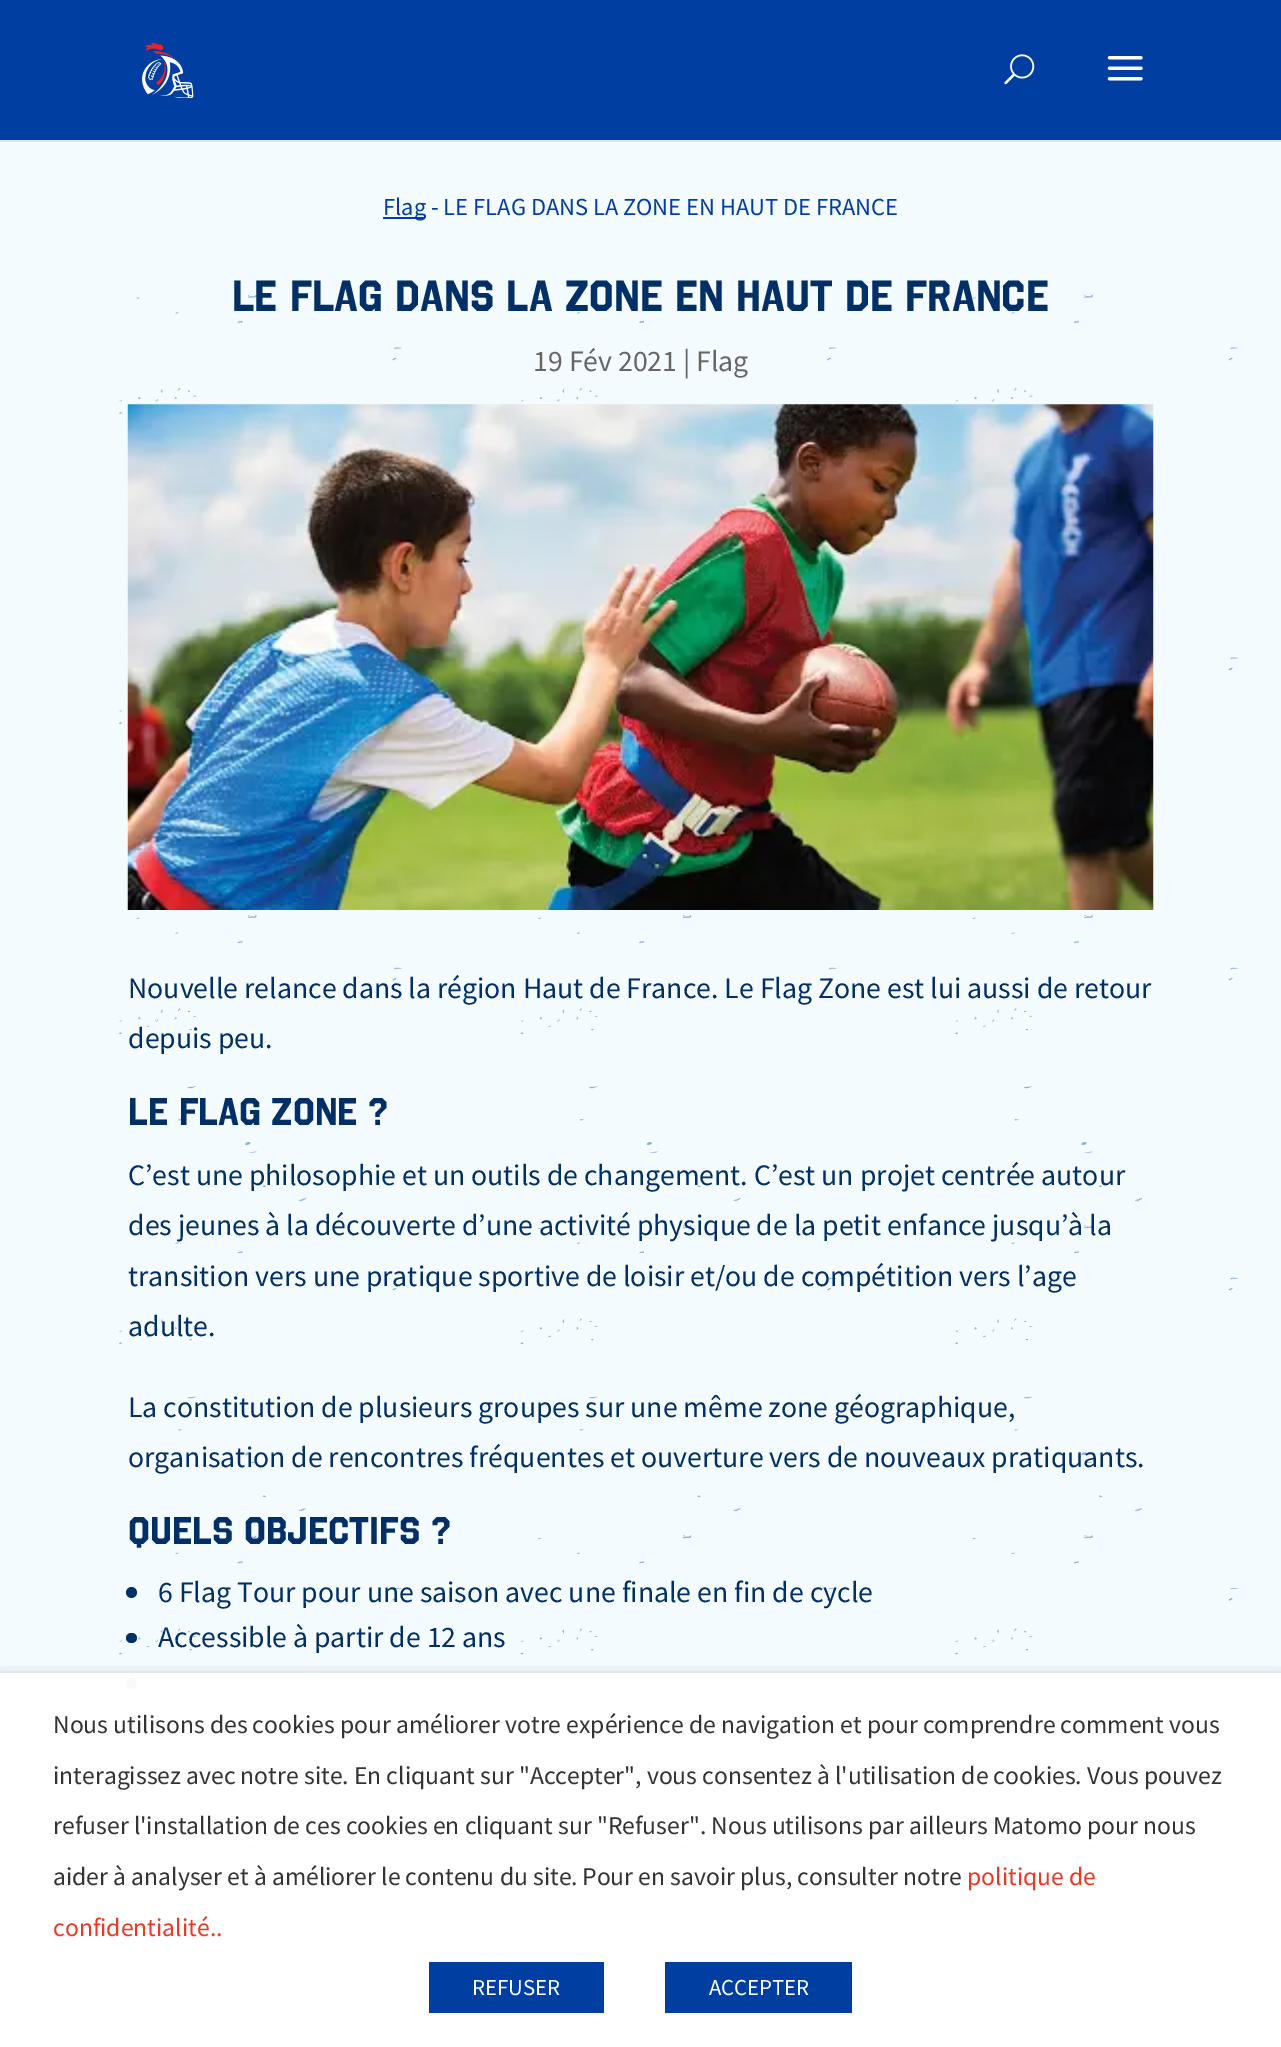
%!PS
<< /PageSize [1281 2047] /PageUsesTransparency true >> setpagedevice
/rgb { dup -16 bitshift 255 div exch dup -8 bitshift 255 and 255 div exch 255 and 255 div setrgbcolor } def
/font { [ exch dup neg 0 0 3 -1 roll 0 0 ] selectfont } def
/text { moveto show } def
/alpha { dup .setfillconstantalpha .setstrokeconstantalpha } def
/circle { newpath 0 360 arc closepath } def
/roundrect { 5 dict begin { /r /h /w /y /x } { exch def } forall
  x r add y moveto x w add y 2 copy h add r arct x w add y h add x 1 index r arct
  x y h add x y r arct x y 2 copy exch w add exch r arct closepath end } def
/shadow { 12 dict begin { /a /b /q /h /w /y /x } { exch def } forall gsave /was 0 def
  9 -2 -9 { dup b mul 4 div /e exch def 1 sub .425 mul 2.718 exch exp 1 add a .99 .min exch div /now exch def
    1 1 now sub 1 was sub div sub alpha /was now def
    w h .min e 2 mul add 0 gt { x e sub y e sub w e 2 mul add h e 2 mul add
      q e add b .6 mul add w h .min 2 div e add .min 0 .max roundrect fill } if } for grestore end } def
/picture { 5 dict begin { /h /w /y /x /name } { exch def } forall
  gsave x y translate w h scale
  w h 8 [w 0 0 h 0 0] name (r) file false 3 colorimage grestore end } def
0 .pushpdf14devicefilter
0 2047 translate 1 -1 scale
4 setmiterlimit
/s1 { /SourceSansPro-Regular 24.5 font 16#003EA2 rgb } def
/s2 { /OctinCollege-Bold 43.75 font 16#023066 rgb } def
/s3 { /SourceSansPro-Regular 29.75 font 16#666666 rgb } def
/s4 { /SourceSansPro-Regular 29.75 font 16#023066 rgb } def
/s5 { /OctinCollege-Bold 38.5 font 16#023066 rgb } def
/s6 { /SourceSansPro-Regular 25.65 font 16#333333 rgb } def
/s7 { /SourceSansPro-Regular 25.65 font 16#ED3924 rgb } def
/s8 { /SourceSansPro-Regular 22.75 font 16#FFFFFF rgb } def
16#FFFFFF rgb
0 0 1281 2047 rectfill
16#DCE2E6 rgb
0 140 1281 2 rectfill
16#003EA2 rgb
0 0 1281 140 rectfill
(pic1.raw) 142 42 52 56 picture
(pic2.raw) 1004 54 31 31 picture
(pic3.raw) 1107 56 36 25 picture
(pic4.raw) 0 142 1281 1905 picture
383 217 42 2 rectfill
s1
(Flag - LE FLAG DANS LA ZONE EN HAUT DE FRANCE) 383 215 text
s2
(LE FLAG DANS LA ZONE EN HAUT DE FRANCE) 232 311 text
s3
(19 Fév 2021 | Flag) 533 371 text
(pic5.raw) 127 404 1027 506 picture
s4
(Nouvelle relance dans la région Haut de France. Le Flag Zone est lui aussi de retour) 128 998 text
(depuis peu.) 128 1048 text
s5
(Le FLAG ZONE ?) 128 1125 text
s4
(C’est une philosophie et un outils de changement. C’est un projet centrée autour) 128 1185 text
(des jeunes à la découverte d’une activité physique de la petit enfance jusqu’à la) 128 1235 text
(transition vers une pratique sportive de loisir et/ou de compétition vers l’age) 128 1286 text
(adulte.) 128 1336 text
(La constitution de plusieurs groupes sur une même zone géographique,) 128 1417 text
(organisation de rencontres fréquentes et ouverture vers de nouveaux pratiquants.) 128 1467 text
s5
(Quels objectifs ?) 128 1544 text
131.5 1592.5 5.5 circle fill
s4
(6 Flag Tour pour une saison avec une finale en fin de cycle) 158 1602 text
126 1633 11 10 5 roundrect fill
(Accessible à partir de 12 ans) 158 1647 text
131.5 1683.5 5.5 circle fill
126 1724 11 10 5 roundrect fill
131.5 1774.5 5.5 circle fill
gsave
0 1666 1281 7 rectclip
16#000000 rgb
0 1682 1281 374 0 9 0.5 shadow
grestore
0.97 alpha
16#FFFFFF rgb
0 1673 1281 374 rectfill
1 alpha
s6
(Nous utilisons des cookies pour améliorer votre expérience de navigation et pour comprendre comment vous) 53 1733 text
(interagissez avec notre site. En cliquant sur "Accepter", vous consentez à l'utilisation de cookies. Vous pouvez) 53 1784 text
(refuser l'installation de ces cookies en cliquant sur "Refuser". Nous utilisons par ailleurs Matomo pour nous) 53 1834 text
(aider à analyser et à améliorer le contenu du site.) 53 1885 text
(Pour en savoir plus, consulter notre) 582 1885 text
s7
(politique de) 967 1885 text
(confidentialité..) 53 1936 text
16#003EA2 rgb
429 1962 175 51 rectfill
s8
(REFUSER) 472 1995 text
16#003EA2 rgb
665 1962 187 51 rectfill
s8
(ACCEPTER) 709 1995 text
.poppdf14devicefilter showpage
